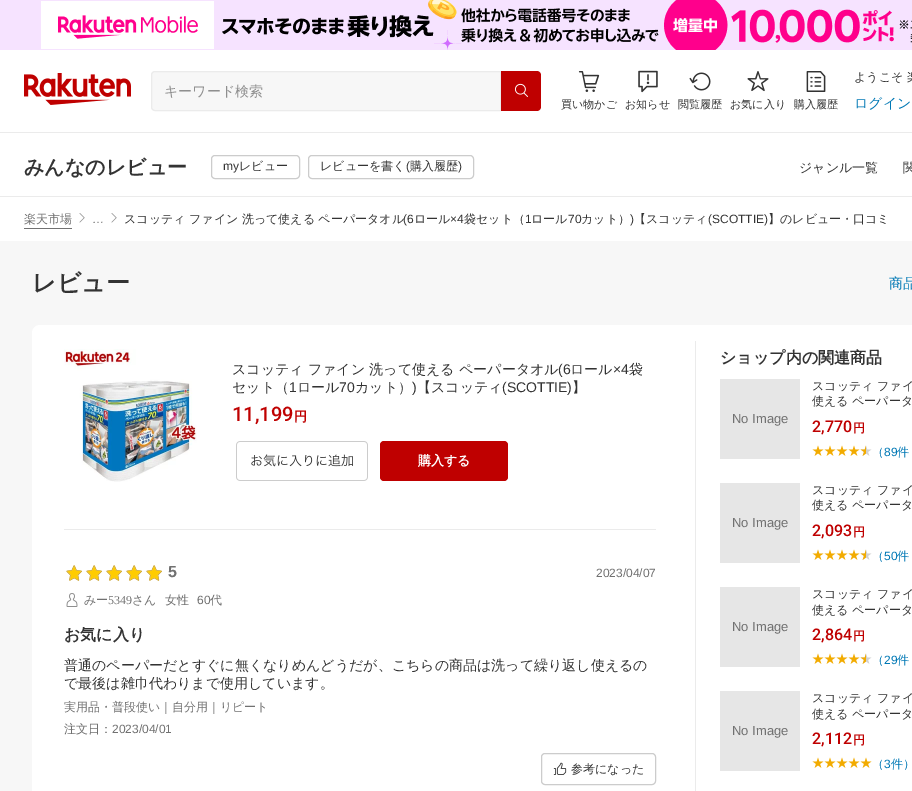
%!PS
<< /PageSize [912 791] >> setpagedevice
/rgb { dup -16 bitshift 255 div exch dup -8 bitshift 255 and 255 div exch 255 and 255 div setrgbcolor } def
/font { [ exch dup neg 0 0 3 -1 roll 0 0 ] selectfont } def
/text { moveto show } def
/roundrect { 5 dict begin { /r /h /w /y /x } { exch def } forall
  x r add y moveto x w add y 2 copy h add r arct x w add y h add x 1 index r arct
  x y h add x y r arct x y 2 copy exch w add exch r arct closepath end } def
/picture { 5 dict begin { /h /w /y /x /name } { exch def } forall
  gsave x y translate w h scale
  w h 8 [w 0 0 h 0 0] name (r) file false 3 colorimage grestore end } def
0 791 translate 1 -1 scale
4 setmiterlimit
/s1 { /WenQuanYiZenHei-Medium 14 font 16#8F8F8F rgb } def
/s2 { /WenQuanYiZenHei-Medium 12 font 16#333333 rgb } def
/s3 { /WenQuanYiZenHei-Medium 14 font 16#0078B5 rgb } def
/s4 { /WenQuanYiZenHei-Medium 11 font 16#333333 rgb } def
/s5 { /WenQuanYiZenHei-Bold 20 font 16#333333 rgb } def
/s6 { /LiberationSans-Regular 12 font 16#333333 rgb } def
/s7 { /WenQuanYiZenHei-Medium 13 font 16#333333 rgb } def
/s8 { /WenQuanYiZenHei-Medium 12 font 16#717171 rgb } def
/s9 { /LiberationSans-Regular 12 font 16#717171 rgb } def
/s10 { /WenQuanYiZenHei-Bold 24 font 16#333333 rgb } def
/s11 { /WenQuanYiZenHei-Medium 14 font 16#333333 rgb } def
/s12 { /LiberationSans-Regular 14 font 16#333333 rgb } def
/s13 { /Roboto-Medium 20 font 16#BF0000 rgb } def
/s14 { /WenQuanYiZenHei-Bold 13 font 16#BF0000 rgb } def
/s15 { /WenQuanYiZenHei-Bold 13 font 16#FFFFFF rgb } def
/s16 { /LiberationSans-Bold 16 font 16#717171 rgb } def
/s17 { /LiberationSerif-Regular 12 font 16#717171 rgb } def
/s18 { /WenQuanYiZenHei-Bold 16 font 16#333333 rgb } def
/s19 { /LiberationSans-Regular 13 font 16#717171 rgb } def
/s20 { /Roboto-Medium 16 font 16#BF0000 rgb } def
/s21 { /WenQuanYiZenHei-Bold 12 font 16#BF0000 rgb } def
/s22 { /WenQuanYiZenHei-Medium 12 font 16#0078B5 rgb } def
/s23 { /LiberationSans-Regular 12 font 16#0078B5 rgb } def
16#FFFFFF rgb
0 0 912 791 rectfill
(pic1.raw) 0 0 912 50 picture
16#EBEBEB rgb
0 132 912 1 rectfill
(pic2.raw) 24 73 107 32 picture
16#F7F7F7 rgb
155 71.5 moveto 500.5 71.5 lineto 500.5 110.5 lineto 155 110.5 lineto 153 110.5 151.5 109 151.5 107 curveto 151.5 75 lineto 151.5 73 153 71.5 155 71.5 curveto closepath gsave fill grestore
16#EBEBEB rgb
stroke
s1
(キーワード検索) 164 96 text
16#BF0000 rgb
501 71 moveto 537 71 lineto 539 71 541 73 541 75 curveto 541 107 lineto 541 109 539 111 537 111 curveto 501 111 lineto closepath fill
(pic3.raw) 514 83 14 14 picture
s2
(ようこそ 楽) 854 81 text
s3
(ログイン) 854 108 text
(pic4.raw) 578 71 22 21 picture
s4
(買い物かご) 561 108 text
(pic5.raw) 638 70 20 23 picture
(お知らせ) 625 108 text
(pic6.raw) 689 72 22 19 picture
(閲覧履歴) 678 108 text
(pic7.raw) 747 71 22 21 picture
(お気に入り) 730 108 text
(pic8.raw) 806 71 20 21 picture
(購入履歴) 794 108 text
16#EBEBEB rgb
0 196 912 1 rectfill
s5
(みんなのレビュー) 24 174 text
16#CCCCCC rgb
211.5 155.5 88 23 3.5 roundrect stroke
s6
(my) 223 170 text
s2
(レビュー) 239 170 text
16#CCCCCC rgb
308.5 155.5 165 23 3.5 roundrect stroke
s2
(レビューを書く) 320 170 text
s6
(\() 406 170 text
s2
(購入履歴) 410 170 text
s6
(\)) 458 170 text
s7
(ジャンル一覧) 799 172 text
(関) 903 172 text
16#717171 rgb
24 228 48 1 rectfill
s8
(楽天市場) 24 223 text
(pic9.raw) 79 213 6 10 picture
s9
(…) 92 223 text
(pic9.raw) 111 213 6 10 picture
s2
(スコッティ ファイン 洗って使える ペーパータオル) 124 223 text
s6
(\(6) 403 223 text
s2
(ロール) 414 223 text
s6
(×4) 450 223 text
s2
(袋セット（) 464 223 text
s6
(1) 525 223 text
s2
(ロール) 531 223 text
s6
(70) 568 223 text
s2
(カット）) 581 223 text
s6
(\)) 630 223 text
s2
(【スコッティ) 634 223 text
s6
(\(SCOTTIE\)) 708 223 text
s2
(】のレビュー・口コミ) 768 223 text
16#F7F7F7 rgb
0 241 912 84 rectfill
s10
(レビュー) 32 291 text
s3
(商品) 889 288 text
16#F7F7F7 rgb
0 325 40 466 rectfill
16#FFFFFF rgb
32 325 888 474 8 roundrect fill
16#EBEBEB rgb
64 529 592 1 rectfill
(pic10.raw) 64 349 133 133 picture
s11
(スコッティ ファイン 洗って使える ペーパータオル) 232 374 text
s12
(\(6) 558 374 text
s11
(ロール) 570 374 text
s12
(×4) 613 374 text
s11
(袋) 629 374 text
(セット（) 232 392 text
s12
(1) 289 392 text
s11
(ロール) 297 392 text
s12
(70) 339 392 text
s11
(カット）) 355 392 text
s12
(\)) 412 392 text
s11
(【スコッティ) 417 392 text
s12
(\(SCOTTIE\)) 502 392 text
s11
(】) 572 392 text
s13
(11,199) 232 421 text
s14
(円) 294 421 text
(pic11.raw) 236 441 132 40 picture
380 441 128 40 4 roundrect fill
s15
(購入する) 418 465 text
(pic12.raw) 66 565 16 16 picture
(pic12.raw) 86 565 16 16 picture
(pic12.raw) 106 565 16 16 picture
(pic12.raw) 126 565 16 16 picture
(pic12.raw) 146 565 16 16 picture
s16
(5) 168 577 text
s9
(2023/04/07) 596 577 text
(pic13.raw) 66 593 12 14 picture
s8
(みー) 84 604 text
s17
(5349) 108 604 text
s8
(さん) 132 604 text
(女性) 165 604 text
s9
(60) 197 604 text
s8
(代) 210 604 text
s18
(お気に入り) 64 640 text
s11
(普通のペーパーだとすぐに無くなりめんどうだが、こちらの商品は洗って繰り返し使えるの) 64 670 text
(で最後は雑巾代わりまで使用しています。) 64 688 text
s8
(実用品・普段使い｜自分用｜リピート) 64 711 text
(注文日：) 64 733 text
s9
(2023/04/01) 112 733 text
16#CCCCCC rgb
541.5 753.5 114 31 3.5 roundrect stroke
(pic14.raw) 553 762 14 13 picture
s2
(参考になった) 571 773 text
16#EBEBEB rgb
695 341 1 450 rectfill
s18
(ショップ内の関連商品) 720 363 text
16#E6E6E6 rgb
720 379 80 80 rectfill
s19
(No Image) 732 423 text
s2
(スコッティ ファイ) 812 390 text
(使える ペーパータ) 812 405 text
s20
(2,770) 812 432 text
s21
(円) 853 432 text
(pic15.raw) 812 445 12 11 picture
(pic15.raw) 824 445 12 11 picture
(pic15.raw) 836 445 12 11 picture
(pic15.raw) 848 445 12 11 picture
(pic16.raw) 860 445 12 11 picture
s22
(（) 872 456 text
s23
(89) 884 456 text
s22
(件) 897 456 text
16#E6E6E6 rgb
720 483 80 80 rectfill
s19
(No Image) 732 527 text
s2
(スコッティ ファイ) 812 494 text
(使える ペーパータ) 812 509 text
s20
(2,093) 812 536 text
s21
(円) 853 536 text
(pic15.raw) 812 549 12 11 picture
(pic15.raw) 824 549 12 11 picture
(pic15.raw) 836 549 12 11 picture
(pic15.raw) 848 549 12 11 picture
(pic16.raw) 860 549 12 11 picture
s22
(（) 872 560 text
s23
(50) 884 560 text
s22
(件) 897 560 text
16#E6E6E6 rgb
720 587 80 80 rectfill
s19
(No Image) 732 631 text
s2
(スコッティ ファイ) 812 598 text
(使える ペーパータ) 812 614 text
s20
(2,864) 812 640 text
s21
(円) 853 640 text
(pic15.raw) 812 653 12 11 picture
(pic15.raw) 824 653 12 11 picture
(pic15.raw) 836 653 12 11 picture
(pic15.raw) 848 653 12 11 picture
(pic16.raw) 860 653 12 11 picture
s22
(（) 872 664 text
s23
(29) 884 664 text
s22
(件) 897 664 text
16#E6E6E6 rgb
720 691 80 80 rectfill
s19
(No Image) 732 735 text
s2
(スコッティ ファイ) 812 702 text
(使える ペーパータ) 812 718 text
s20
(2,112) 812 744 text
s21
(円) 853 744 text
(pic15.raw) 812 757 12 11 picture
(pic15.raw) 824 757 12 11 picture
(pic15.raw) 836 757 12 11 picture
(pic15.raw) 848 757 12 11 picture
(pic15.raw) 860 757 12 11 picture
s22
(（) 872 768 text
s23
(3) 884 768 text
s22
(件）) 891 768 text
showpage
